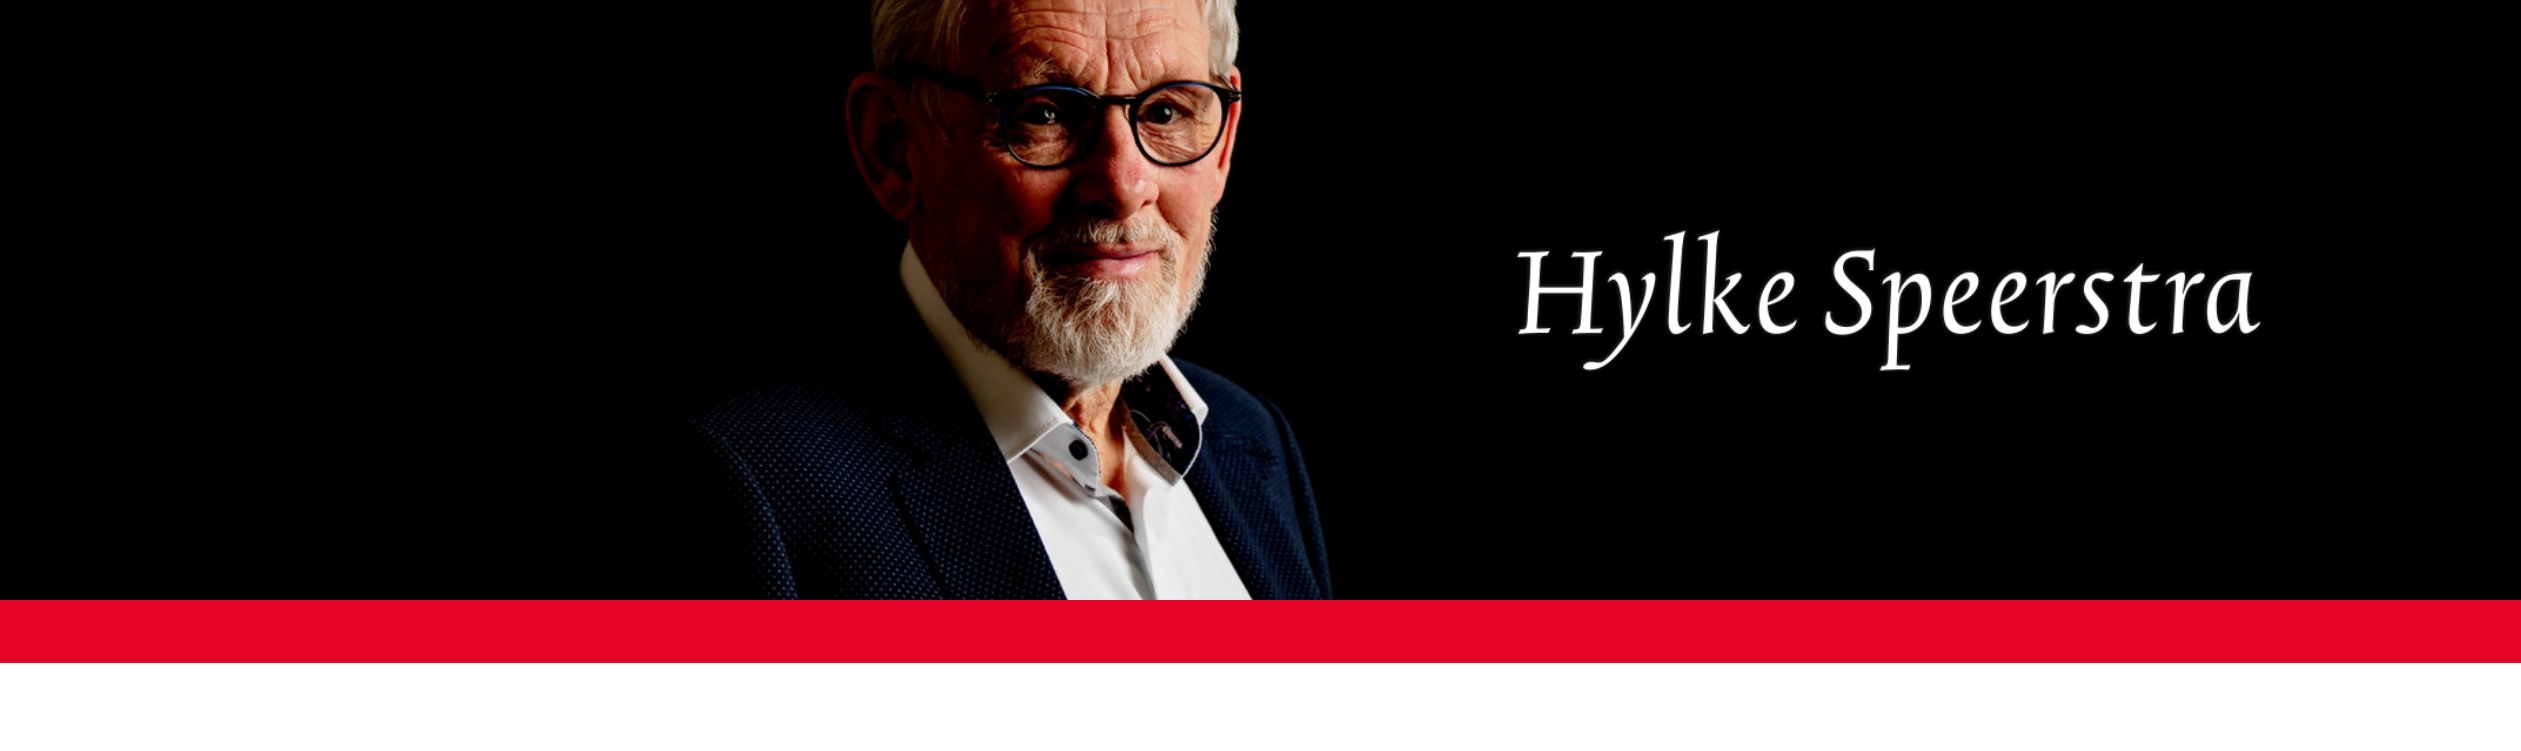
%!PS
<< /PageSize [2521 751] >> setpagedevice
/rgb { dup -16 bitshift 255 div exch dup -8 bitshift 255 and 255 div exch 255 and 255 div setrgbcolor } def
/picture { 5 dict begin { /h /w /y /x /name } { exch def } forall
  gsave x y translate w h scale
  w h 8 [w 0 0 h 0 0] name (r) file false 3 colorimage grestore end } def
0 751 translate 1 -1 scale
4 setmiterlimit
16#FFFFFF rgb
0 0 2521 751 rectfill
(pic1.raw) 0 0 2521 600 picture
(pic2.raw) 1515 228 746 145 picture
16#E40426 rgb
0 600 2521 63 rectfill
showpage
